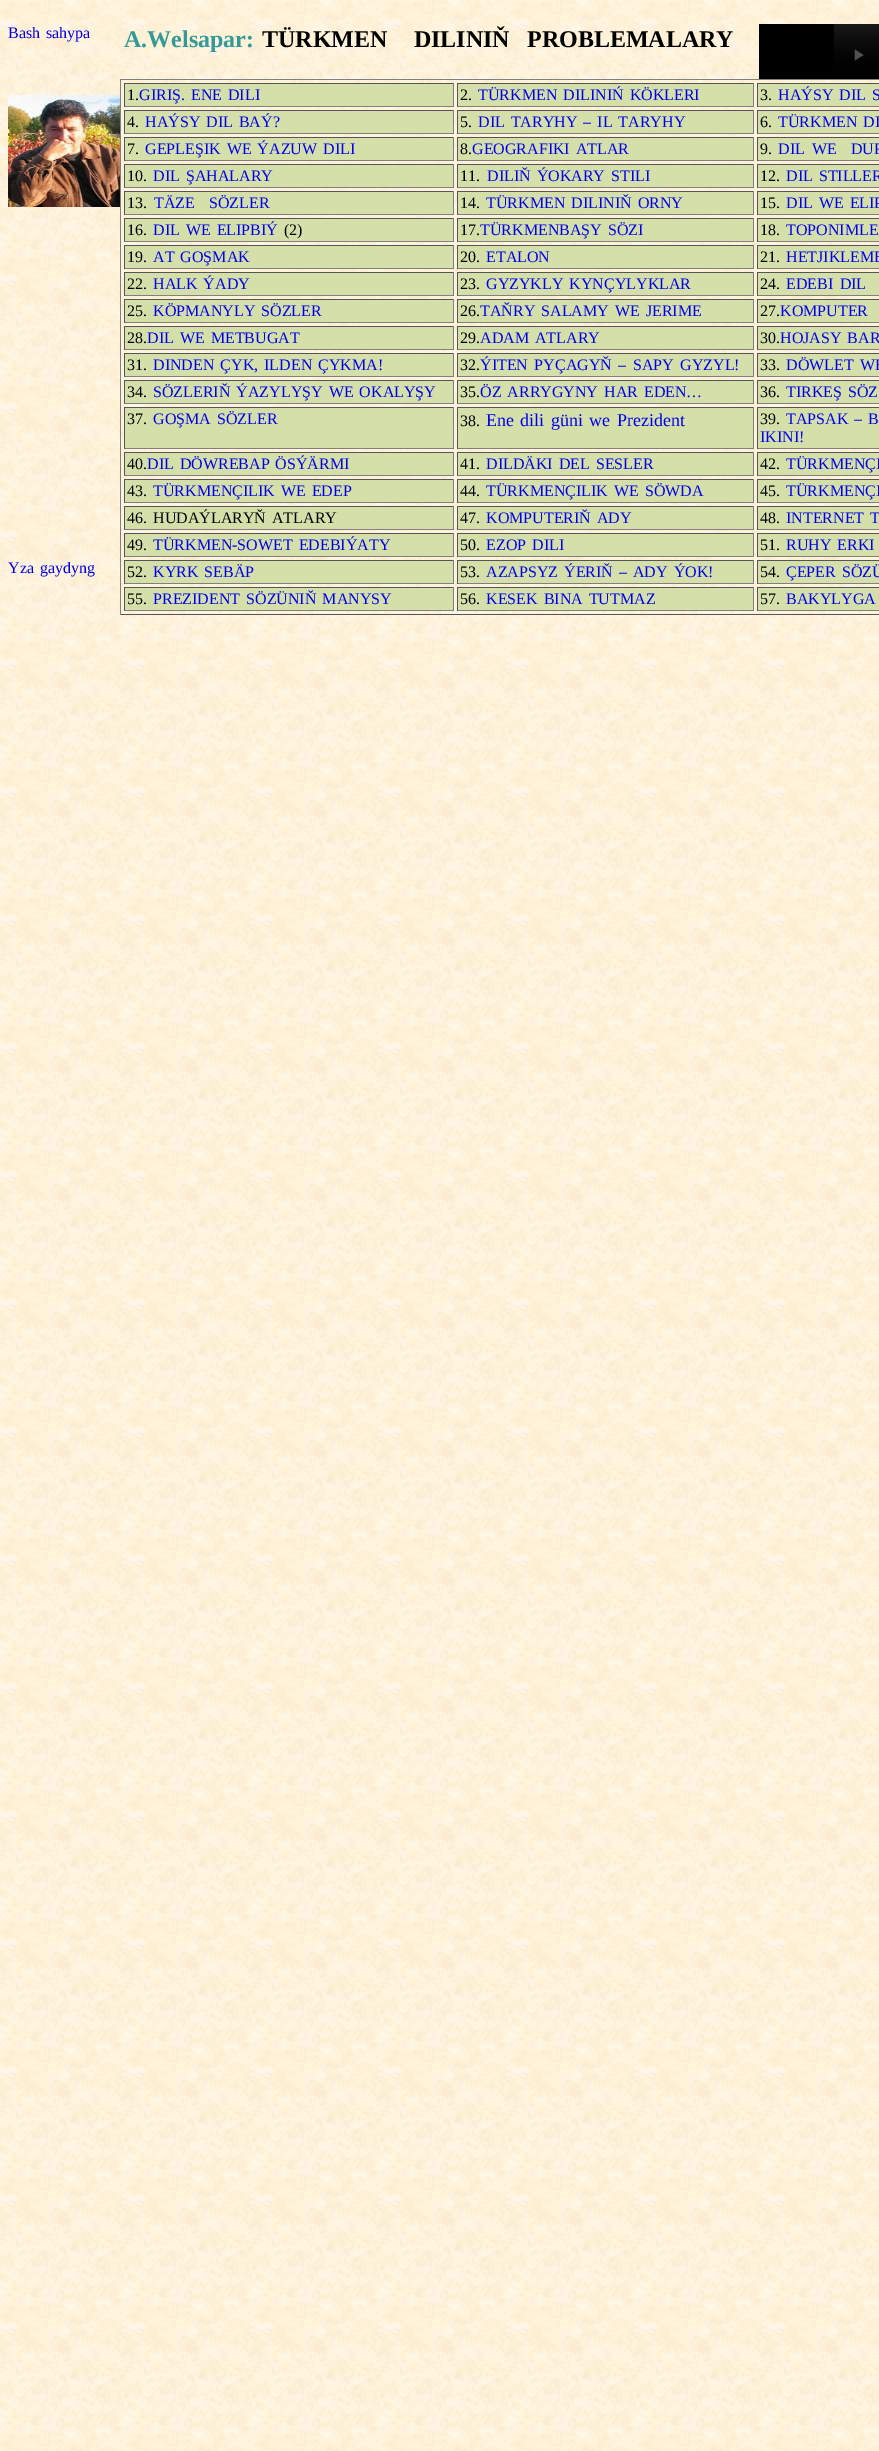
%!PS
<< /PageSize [879 2451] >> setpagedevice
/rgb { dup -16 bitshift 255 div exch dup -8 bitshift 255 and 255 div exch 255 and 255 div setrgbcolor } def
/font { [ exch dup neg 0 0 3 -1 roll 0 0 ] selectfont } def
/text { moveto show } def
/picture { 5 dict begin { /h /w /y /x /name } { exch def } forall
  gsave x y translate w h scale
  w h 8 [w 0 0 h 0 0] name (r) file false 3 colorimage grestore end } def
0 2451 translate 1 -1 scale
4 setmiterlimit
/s1 { /LiberationSerif-Bold 24 font 16#339999 rgb } def
/s2 { /LiberationSerif-Regular 16 font 16#000000 rgb } def
/s3 { /LiberationSerif-Regular 16 font 16#0000EE rgb } def
16#FFFFFF rgb
0 0 879 2451 rectfill
(pic1.raw) 0 0 879 2451 picture
/LiberationSerif-Regular 16 font
16#0000EE rgb
8 38 moveto 2 0 32 (Bash sahypa) widthshow
s1
(A.Welsapar:) 124 47 text
16#000000 rgb
262 47 moveto 2.75 0 32 (TÜRKMEN   DILINIŇ  PROBLEMALARY) widthshow
(pic2.raw) 759 24 120 55 picture
(pic3.raw) 8 95 112 112 picture
16#808080 rgb
120 79 759 1 rectfill
16#555555 rgb
120 614 759 1 rectfill
16#808080 rgb
120 79 1 536 rectfill
16#D4DFAA rgb
125 84 328 22 rectfill
16#555555 rgb
124 83 330 1 rectfill
16#808080 rgb
453 83 1 24 rectfill
124 106 330 1 rectfill
16#555555 rgb
124 83 1 24 rectfill
s2
(1.) 127 100 text
16#0000EE rgb
139 100 moveto 2 0 32 (GIRIŞ. ENE DILI) widthshow
16#D4DFAA rgb
458 84 295 22 rectfill
16#555555 rgb
457 83 297 1 rectfill
16#808080 rgb
753 83 1 24 rectfill
457 106 297 1 rectfill
16#555555 rgb
457 83 1 24 rectfill
s2
(2.) 460 100 text
16#0000EE rgb
478 100 moveto 2 0 32 (TÜRKMEN DILINIŃ KÖKLERI) widthshow
16#D4DFAA rgb
758 84 121 22 rectfill
16#555555 rgb
757 83 122 1 rectfill
16#808080 rgb
757 106 122 1 rectfill
16#555555 rgb
757 83 1 24 rectfill
s2
(3.) 760 100 text
16#0000EE rgb
778 100 moveto 2 0 32 (HAÝSY DIL S) widthshow
16#D4DFAA rgb
125 111 328 22 rectfill
16#555555 rgb
124 110 330 1 rectfill
16#808080 rgb
453 110 1 24 rectfill
124 133 330 1 rectfill
16#555555 rgb
124 110 1 24 rectfill
s2
(4.) 127 127 text
16#0000EE rgb
145 127 moveto 2 0 32 (HAÝSY DIL BAÝ?) widthshow
16#D4DFAA rgb
458 111 295 22 rectfill
16#555555 rgb
457 110 297 1 rectfill
16#808080 rgb
753 110 1 24 rectfill
457 133 297 1 rectfill
16#555555 rgb
457 110 1 24 rectfill
s2
(5.) 460 127 text
16#0000EE rgb
478 127 moveto 2 0 32 (DIL TARYHY – IL TARYHY) widthshow
16#D4DFAA rgb
758 111 121 22 rectfill
16#555555 rgb
757 110 122 1 rectfill
16#808080 rgb
757 133 122 1 rectfill
16#555555 rgb
757 110 1 24 rectfill
s2
(6.) 760 127 text
16#0000EE rgb
778 127 moveto 2 0 32 (TÜRKMEN DI) widthshow
16#D4DFAA rgb
125 138 328 22 rectfill
16#555555 rgb
124 137 330 1 rectfill
16#808080 rgb
453 137 1 24 rectfill
124 160 330 1 rectfill
16#555555 rgb
124 137 1 24 rectfill
s2
(7.) 127 154 text
16#0000EE rgb
145 154 moveto 2 0 32 (GEPLEŞIK WE ÝAZUW DILI) widthshow
16#D4DFAA rgb
458 138 295 22 rectfill
16#555555 rgb
457 137 297 1 rectfill
16#808080 rgb
753 137 1 24 rectfill
457 160 297 1 rectfill
16#555555 rgb
457 137 1 24 rectfill
s2
(8.) 460 154 text
16#0000EE rgb
472 154 moveto 2 0 32 (GEOGRAFIKI ATLAR) widthshow
16#D4DFAA rgb
758 138 121 22 rectfill
16#555555 rgb
757 137 122 1 rectfill
16#808080 rgb
757 160 122 1 rectfill
16#555555 rgb
757 137 1 24 rectfill
s2
(9.) 760 154 text
16#0000EE rgb
778 154 moveto 3 0 32 (DIL WE  DUR) widthshow
16#D4DFAA rgb
125 165 328 22 rectfill
16#555555 rgb
124 164 330 1 rectfill
16#808080 rgb
453 164 1 24 rectfill
124 187 330 1 rectfill
16#555555 rgb
124 164 1 24 rectfill
s2
(10.) 127 181 text
16#0000EE rgb
153 181 moveto 2 0 32 (DIL ŞAHALARY) widthshow
16#D4DFAA rgb
458 165 295 22 rectfill
16#555555 rgb
457 164 297 1 rectfill
16#808080 rgb
753 164 1 24 rectfill
457 187 297 1 rectfill
16#555555 rgb
457 164 1 24 rectfill
s2
(11.) 460 181 text
16#0000EE rgb
487 181 moveto 2 0 32 (DILIŇ ÝOKARY STILI) widthshow
16#D4DFAA rgb
758 165 121 22 rectfill
16#555555 rgb
757 164 122 1 rectfill
16#808080 rgb
757 187 122 1 rectfill
16#555555 rgb
757 164 1 24 rectfill
s2
(12.) 760 181 text
16#0000EE rgb
786 181 moveto 2 0 32 (DIL STILLER) widthshow
16#D4DFAA rgb
125 192 328 22 rectfill
16#555555 rgb
124 191 330 1 rectfill
16#808080 rgb
453 191 1 24 rectfill
124 214 330 1 rectfill
16#555555 rgb
124 191 1 24 rectfill
s2
(13.) 127 208 text
16#0000EE rgb
154 208 moveto 3 0 32 (TÄZE  SÖZLER) widthshow
16#D4DFAA rgb
458 192 295 22 rectfill
16#555555 rgb
457 191 297 1 rectfill
16#808080 rgb
753 191 1 24 rectfill
457 214 297 1 rectfill
16#555555 rgb
457 191 1 24 rectfill
s2
(14.) 460 208 text
16#0000EE rgb
486 208 moveto 2 0 32 (TÜRKMEN DILINIŇ ORNY) widthshow
16#D4DFAA rgb
758 192 121 22 rectfill
16#555555 rgb
757 191 122 1 rectfill
16#808080 rgb
757 214 122 1 rectfill
16#555555 rgb
757 191 1 24 rectfill
s2
(15.) 760 208 text
16#0000EE rgb
786 208 moveto 2 0 32 (DIL WE ELIP) widthshow
16#D4DFAA rgb
125 219 328 22 rectfill
16#555555 rgb
124 218 330 1 rectfill
16#808080 rgb
453 218 1 24 rectfill
124 241 330 1 rectfill
16#555555 rgb
124 218 1 24 rectfill
s2
(16.) 127 235 text
16#0000EE rgb
153 235 moveto 2 0 32 (DIL WE ELIPBIÝ) widthshow
s2
(\(2\)) 284 235 text
16#D4DFAA rgb
458 219 295 22 rectfill
16#555555 rgb
457 218 297 1 rectfill
16#808080 rgb
753 218 1 24 rectfill
457 241 297 1 rectfill
16#555555 rgb
457 218 1 24 rectfill
s2
(17.) 460 235 text
16#0000EE rgb
480 235 moveto 2 0 32 (TÜRKMENBAŞY SÖZI) widthshow
16#D4DFAA rgb
758 219 121 22 rectfill
16#555555 rgb
757 218 122 1 rectfill
16#808080 rgb
757 241 122 1 rectfill
16#555555 rgb
757 218 1 24 rectfill
s2
(18.) 760 235 text
s3
(TOPONIMLE) 786 235 text
16#D4DFAA rgb
125 246 328 22 rectfill
16#555555 rgb
124 245 330 1 rectfill
16#808080 rgb
453 245 1 24 rectfill
124 268 330 1 rectfill
16#555555 rgb
124 245 1 24 rectfill
s2
(19.) 127 262 text
16#0000EE rgb
153 262 moveto 2 0 32 (AT GOŞMAK) widthshow
16#D4DFAA rgb
458 246 295 22 rectfill
16#555555 rgb
457 245 297 1 rectfill
16#808080 rgb
753 245 1 24 rectfill
457 268 297 1 rectfill
16#555555 rgb
457 245 1 24 rectfill
s2
(20.) 460 262 text
s3
(ETALON) 486 262 text
16#D4DFAA rgb
758 246 121 22 rectfill
16#555555 rgb
757 245 122 1 rectfill
16#808080 rgb
757 268 122 1 rectfill
16#555555 rgb
757 245 1 24 rectfill
s2
(21.) 760 262 text
16#0000EE rgb
786 262 moveto 2 0 32 (HETJIKLEME) widthshow
16#D4DFAA rgb
125 273 328 22 rectfill
16#555555 rgb
124 272 330 1 rectfill
16#808080 rgb
453 272 1 24 rectfill
124 295 330 1 rectfill
16#555555 rgb
124 272 1 24 rectfill
s2
(22.) 127 289 text
16#0000EE rgb
153 289 moveto 2 0 32 (HALK ÝADY) widthshow
16#D4DFAA rgb
458 273 295 22 rectfill
16#555555 rgb
457 272 297 1 rectfill
16#808080 rgb
753 272 1 24 rectfill
457 295 297 1 rectfill
16#555555 rgb
457 272 1 24 rectfill
s2
(23.) 460 289 text
16#0000EE rgb
486 289 moveto 2 0 32 (GYZYKLY KYNÇYLYKLAR) widthshow
16#D4DFAA rgb
758 273 121 22 rectfill
16#555555 rgb
757 272 122 1 rectfill
16#808080 rgb
757 295 122 1 rectfill
16#555555 rgb
757 272 1 24 rectfill
s2
(24.) 760 289 text
16#0000EE rgb
786 289 moveto 2.5 0 32 (EDEBI DIL) widthshow
16#D4DFAA rgb
125 300 328 22 rectfill
16#555555 rgb
124 299 330 1 rectfill
16#808080 rgb
453 299 1 24 rectfill
124 322 330 1 rectfill
16#555555 rgb
124 299 1 24 rectfill
s2
(25.) 127 316 text
16#0000EE rgb
153 316 moveto 2 0 32 (KÖPMANYLY SÖZLER) widthshow
16#D4DFAA rgb
458 300 295 22 rectfill
16#555555 rgb
457 299 297 1 rectfill
16#808080 rgb
753 299 1 24 rectfill
457 322 297 1 rectfill
16#555555 rgb
457 299 1 24 rectfill
s2
(26.) 460 316 text
16#0000EE rgb
480 316 moveto 2 0 32 (TAŇRY SALAMY WE JERIME) widthshow
16#D4DFAA rgb
758 300 121 22 rectfill
16#555555 rgb
757 299 122 1 rectfill
16#808080 rgb
757 322 122 1 rectfill
16#555555 rgb
757 299 1 24 rectfill
s2
(27.) 760 316 text
16#0000EE rgb
780 316 moveto 2 0 32 (KOMPUTER) widthshow
16#D4DFAA rgb
125 327 328 22 rectfill
16#555555 rgb
124 326 330 1 rectfill
16#808080 rgb
453 326 1 24 rectfill
124 349 330 1 rectfill
16#555555 rgb
124 326 1 24 rectfill
s2
(28.) 127 343 text
16#0000EE rgb
147 343 moveto 2 0 32 (DIL WE METBUGAT) widthshow
16#D4DFAA rgb
458 327 295 22 rectfill
16#555555 rgb
457 326 297 1 rectfill
16#808080 rgb
753 326 1 24 rectfill
457 349 297 1 rectfill
16#555555 rgb
457 326 1 24 rectfill
s2
(29.) 460 343 text
16#0000EE rgb
480 343 moveto 2 0 32 (ADAM ATLARY) widthshow
16#D4DFAA rgb
758 327 121 22 rectfill
16#555555 rgb
757 326 122 1 rectfill
16#808080 rgb
757 349 122 1 rectfill
16#555555 rgb
757 326 1 24 rectfill
s2
(30.) 760 343 text
16#0000EE rgb
780 343 moveto 2 0 32 (HOJASY BAR) widthshow
16#D4DFAA rgb
125 354 328 22 rectfill
16#555555 rgb
124 353 330 1 rectfill
16#808080 rgb
453 353 1 24 rectfill
124 376 330 1 rectfill
16#555555 rgb
124 353 1 24 rectfill
s2
(31.) 127 370 text
16#0000EE rgb
153 370 moveto 2 0 32 (DINDEN ÇYK, ILDEN ÇYKMA!) widthshow
16#D4DFAA rgb
458 354 295 22 rectfill
16#555555 rgb
457 353 297 1 rectfill
16#808080 rgb
753 353 1 24 rectfill
457 376 297 1 rectfill
16#555555 rgb
457 353 1 24 rectfill
s2
(32.) 460 370 text
16#0000EE rgb
480 370 moveto 2.5 0 32 (ÝITEN PYÇAGYŇ – SAPY GYZYL!) widthshow
16#D4DFAA rgb
758 354 121 22 rectfill
16#555555 rgb
757 353 122 1 rectfill
16#808080 rgb
757 376 122 1 rectfill
16#555555 rgb
757 353 1 24 rectfill
s2
(33.) 760 370 text
16#0000EE rgb
786 370 moveto 2 0 32 (DÖWLET WE) widthshow
16#D4DFAA rgb
125 381 328 22 rectfill
16#555555 rgb
124 380 330 1 rectfill
16#808080 rgb
453 380 1 24 rectfill
124 403 330 1 rectfill
16#555555 rgb
124 380 1 24 rectfill
s2
(34.) 127 397 text
16#0000EE rgb
153 397 moveto 2 0 32 (SÖZLERIŇ ÝAZYLYŞY WE OKALYŞY) widthshow
16#D4DFAA rgb
458 381 295 22 rectfill
16#555555 rgb
457 380 297 1 rectfill
16#808080 rgb
753 380 1 24 rectfill
457 403 297 1 rectfill
16#555555 rgb
457 380 1 24 rectfill
s2
(35.) 460 397 text
16#0000EE rgb
480 397 moveto 2 0 32 (ÖZ ARRYGYNY HAR EDEN…) widthshow
16#D4DFAA rgb
758 381 121 22 rectfill
16#555555 rgb
757 380 122 1 rectfill
16#808080 rgb
757 403 122 1 rectfill
16#555555 rgb
757 380 1 24 rectfill
s2
(36.) 760 397 text
16#0000EE rgb
786 397 moveto 2 0 32 (TIRKEŞ SÖZ) widthshow
16#D4DFAA rgb
125 408 328 40 rectfill
16#555555 rgb
124 407 330 1 rectfill
16#808080 rgb
453 407 1 42 rectfill
124 448 330 1 rectfill
16#555555 rgb
124 407 1 42 rectfill
s2
(37.) 127 424 text
16#0000EE rgb
153 424 moveto 2 0 32 (GOŞMA SÖZLER) widthshow
16#D4DFAA rgb
458 408 295 40 rectfill
16#555555 rgb
457 407 297 1 rectfill
16#808080 rgb
753 407 1 42 rectfill
457 448 297 1 rectfill
16#555555 rgb
457 407 1 42 rectfill
s2
(38.) 460 426 text
/LiberationSerif-Regular 18 font
16#0000EE rgb
486 426 moveto 2 0 32 (Ene dili güni we Prezident) widthshow
16#D4DFAA rgb
758 408 121 40 rectfill
16#555555 rgb
757 407 122 1 rectfill
16#808080 rgb
757 448 122 1 rectfill
16#555555 rgb
757 407 1 42 rectfill
s2
(39.) 760 424 text
16#0000EE rgb
786 424 moveto 2 0 32 (TAPSAK – B) widthshow
(IKINI!) 760 442 text
16#D4DFAA rgb
125 453 328 22 rectfill
16#555555 rgb
124 452 330 1 rectfill
16#808080 rgb
453 452 1 24 rectfill
124 475 330 1 rectfill
16#555555 rgb
124 452 1 24 rectfill
s2
(40.) 127 469 text
16#0000EE rgb
147 469 moveto 2 0 32 (DIL DÖWREBAP ÖSÝÄRMI) widthshow
16#D4DFAA rgb
458 453 295 22 rectfill
16#555555 rgb
457 452 297 1 rectfill
16#808080 rgb
753 452 1 24 rectfill
457 475 297 1 rectfill
16#555555 rgb
457 452 1 24 rectfill
s2
(41.) 460 469 text
16#0000EE rgb
486 469 moveto 2 0 32 (DILDÄKI DEL SESLER) widthshow
16#D4DFAA rgb
758 453 121 22 rectfill
16#555555 rgb
757 452 122 1 rectfill
16#808080 rgb
757 475 122 1 rectfill
16#555555 rgb
757 452 1 24 rectfill
s2
(42.) 760 469 text
s3
(TÜRKMENÇI) 786 469 text
16#D4DFAA rgb
125 480 328 22 rectfill
16#555555 rgb
124 479 330 1 rectfill
16#808080 rgb
453 479 1 24 rectfill
124 502 330 1 rectfill
16#555555 rgb
124 479 1 24 rectfill
s2
(43.) 127 496 text
16#0000EE rgb
153 496 moveto 2 0 32 (TÜRKMENÇILIK WE EDEP) widthshow
16#D4DFAA rgb
458 480 295 22 rectfill
16#555555 rgb
457 479 297 1 rectfill
16#808080 rgb
753 479 1 24 rectfill
457 502 297 1 rectfill
16#555555 rgb
457 479 1 24 rectfill
s2
(44.) 460 496 text
16#0000EE rgb
486 496 moveto 2 0 32 (TÜRKMENÇILIK WE SÖWDA) widthshow
16#D4DFAA rgb
758 480 121 22 rectfill
16#555555 rgb
757 479 122 1 rectfill
16#808080 rgb
757 502 122 1 rectfill
16#555555 rgb
757 479 1 24 rectfill
s2
(45.) 760 496 text
16#0000EE rgb
786 496 moveto 2 0 32 (TÜRKMENÇI) widthshow
16#D4DFAA rgb
125 507 328 22 rectfill
16#555555 rgb
124 506 330 1 rectfill
16#808080 rgb
453 506 1 24 rectfill
124 529 330 1 rectfill
16#555555 rgb
124 506 1 24 rectfill
16#000000 rgb
127 523 moveto 2 0 32 (46. HUDAÝLARYŇ ATLARY) widthshow
16#D4DFAA rgb
458 507 295 22 rectfill
16#555555 rgb
457 506 297 1 rectfill
16#808080 rgb
753 506 1 24 rectfill
457 529 297 1 rectfill
16#555555 rgb
457 506 1 24 rectfill
s2
(47.) 460 523 text
16#0000EE rgb
486 523 moveto 2 0 32 (KOMPUTERIŇ ADY) widthshow
16#D4DFAA rgb
758 507 121 22 rectfill
16#555555 rgb
757 506 122 1 rectfill
16#808080 rgb
757 529 122 1 rectfill
16#555555 rgb
757 506 1 24 rectfill
s2
(48.) 760 523 text
16#0000EE rgb
786 523 moveto 2 0 32 (INTERNET T) widthshow
16#D4DFAA rgb
125 534 328 22 rectfill
16#555555 rgb
124 533 330 1 rectfill
16#808080 rgb
453 533 1 24 rectfill
124 556 330 1 rectfill
16#555555 rgb
124 533 1 24 rectfill
s2
(49.) 127 550 text
16#0000EE rgb
153 550 moveto 2 0 32 (TÜRKMEN-SOWET EDEBIÝATY) widthshow
16#D4DFAA rgb
458 534 295 22 rectfill
16#555555 rgb
457 533 297 1 rectfill
16#808080 rgb
753 533 1 24 rectfill
457 556 297 1 rectfill
16#555555 rgb
457 533 1 24 rectfill
s2
(50.) 460 550 text
16#0000EE rgb
486 550 moveto 2 0 32 (EZOP DILI) widthshow
16#D4DFAA rgb
758 534 121 22 rectfill
16#555555 rgb
757 533 122 1 rectfill
16#808080 rgb
757 556 122 1 rectfill
16#555555 rgb
757 533 1 24 rectfill
s2
(51.) 760 550 text
16#0000EE rgb
786 550 moveto 2 0 32 (RUHY ERKI) widthshow
16#D4DFAA rgb
125 561 328 22 rectfill
16#555555 rgb
124 560 330 1 rectfill
16#808080 rgb
453 560 1 24 rectfill
124 583 330 1 rectfill
16#555555 rgb
124 560 1 24 rectfill
s2
(52.) 127 577 text
16#0000EE rgb
153 577 moveto 2 0 32 (KYRK SEBÄP) widthshow
16#D4DFAA rgb
458 561 295 22 rectfill
16#555555 rgb
457 560 297 1 rectfill
16#808080 rgb
753 560 1 24 rectfill
457 583 297 1 rectfill
16#555555 rgb
457 560 1 24 rectfill
s2
(53.) 460 577 text
16#0000EE rgb
486 577 moveto 2 0 32 (AZAPSYZ ÝERIŇ – ADY ÝOK!) widthshow
16#D4DFAA rgb
758 561 121 22 rectfill
16#555555 rgb
757 560 122 1 rectfill
16#808080 rgb
757 583 122 1 rectfill
16#555555 rgb
757 560 1 24 rectfill
s2
(54.) 760 577 text
16#0000EE rgb
786 577 moveto 2 0 32 (ÇEPER SÖZÜ) widthshow
16#D4DFAA rgb
125 588 328 22 rectfill
16#555555 rgb
124 587 330 1 rectfill
16#808080 rgb
453 587 1 24 rectfill
124 610 330 1 rectfill
16#555555 rgb
124 587 1 24 rectfill
s2
(55.) 127 604 text
16#0000EE rgb
153 604 moveto 2 0 32 (PREZIDENT SÖZÜNIŇ MANYSY) widthshow
16#D4DFAA rgb
458 588 295 22 rectfill
16#555555 rgb
457 587 297 1 rectfill
16#808080 rgb
753 587 1 24 rectfill
457 610 297 1 rectfill
16#555555 rgb
457 587 1 24 rectfill
s2
(56.) 460 604 text
16#0000EE rgb
486 604 moveto 2 0 32 (KESEK BINA TUTMAZ) widthshow
16#D4DFAA rgb
758 588 121 22 rectfill
16#555555 rgb
757 587 122 1 rectfill
16#808080 rgb
757 610 122 1 rectfill
16#555555 rgb
757 587 1 24 rectfill
s2
(57.) 760 604 text
16#0000EE rgb
786 604 moveto 2 0 32 (BAKYLYGA) widthshow
8 573 moveto 2 0 32 (Yza gaydyng) widthshow
showpage
